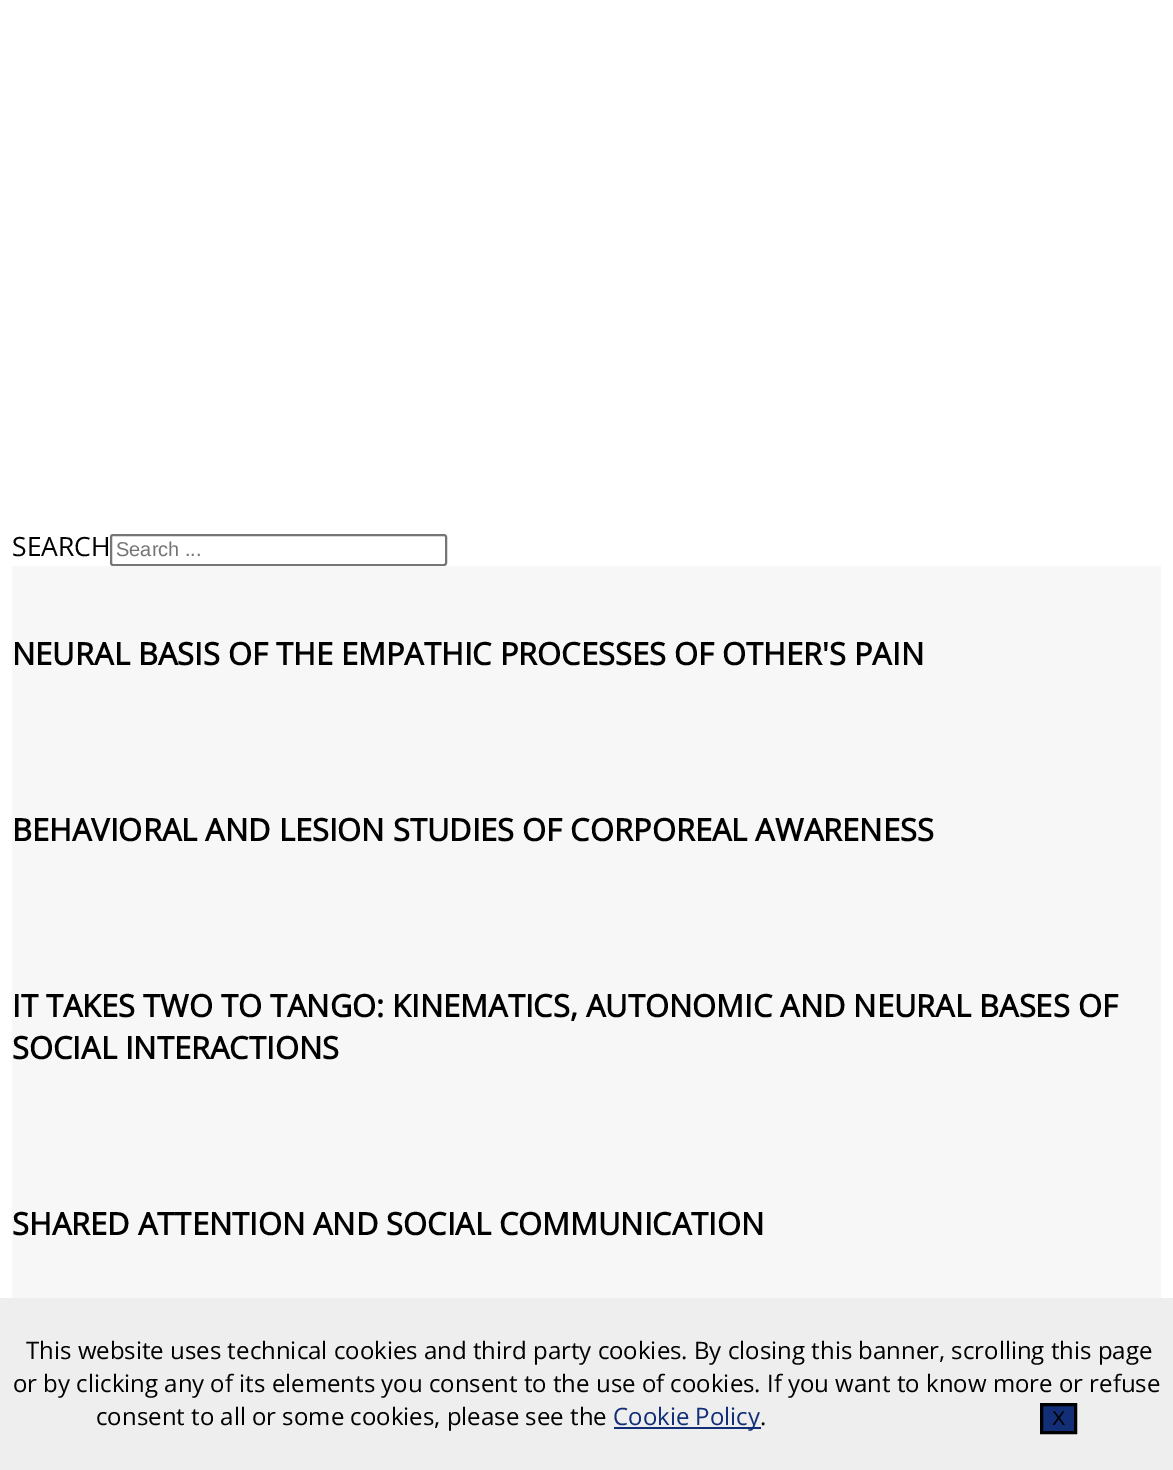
%!PS
<< /PageSize [1173 1470] >> setpagedevice
/rgb { dup -16 bitshift 255 div exch dup -8 bitshift 255 and 255 div exch 255 and 255 div setrgbcolor } def
/font { [ exch dup neg 0 0 3 -1 roll 0 0 ] selectfont } def
/text { moveto show } def
/roundrect { 5 dict begin { /r /h /w /y /x } { exch def } forall
  x r add y moveto x w add y 2 copy h add r arct x w add y h add x 1 index r arct
  x y h add x y r arct x y 2 copy exch w add exch r arct closepath end } def
0 1470 translate 1 -1 scale
4 setmiterlimit
/s1 { /OpenSans-Regular 26.5 font 16#000000 rgb } def
/s2 { /LiberationSans-Regular 20 font 16#757575 rgb } def
/s3 { /OpenSans-Bold 30.9 font 16#000000 rgb } def
/s4 { /OpenSans-Regular 24 font 16#000000 rgb } def
/s5 { /OpenSans-Regular 24 font 16#112E77 rgb } def
/s6 { /LiberationSans-Regular 20 font 16#000000 rgb } def
16#FFFFFF rgb
0 0 1173 1470 rectfill
s1
(SEARCH) 12 556 text
16#767676 rgb
2 setlinewidth
111 535 335 30 2 roundrect stroke
s2
(Search ...) 116 556 text
16#F8F7F7 rgb
12 566 1149 732 rectfill
s3
(NEURAL BASIS OF THE EMPATHIC PROCESSES OF OTHER'S PAIN) 12 665 text
(BEHAVIORAL AND LESION STUDIES OF CORPOREAL AWARENESS) 12 841 text
(IT TAKES TWO TO TANGO: KINEMATICS, AUTONOMIC AND NEURAL BASES OF) 12 1017 text
(SOCIAL INTERACTIONS) 12 1059 text
(SHARED ATTENTION AND SOCIAL COMMUNICATION) 12 1235 text
16#EEEEEE rgb
0 1298 1173 172 rectfill
s4
(This website uses technical cookies and third party cookies. By closing this banner, scrolling this page) 26 1359 text
(or by clicking any of its elements you consent to the use of cookies. If you want to know more or refuse) 13 1392 text
(consent to all or some cookies, please see the) 96 1425 text
16#112E77 rgb
614 1427 147 2 rectfill
(Cookie Policy) 613 1425 text
s4
(.) 760 1425 text
16#112E77 rgb
1041.5 1404.5 moveto 1075.5 1404.5 lineto 1075.5 1432.5 lineto 1041.5 1432.5 lineto closepath gsave fill grestore
16#000000 rgb
3 setlinewidth
stroke
s6
(X) 1052 1425 text
showpage
